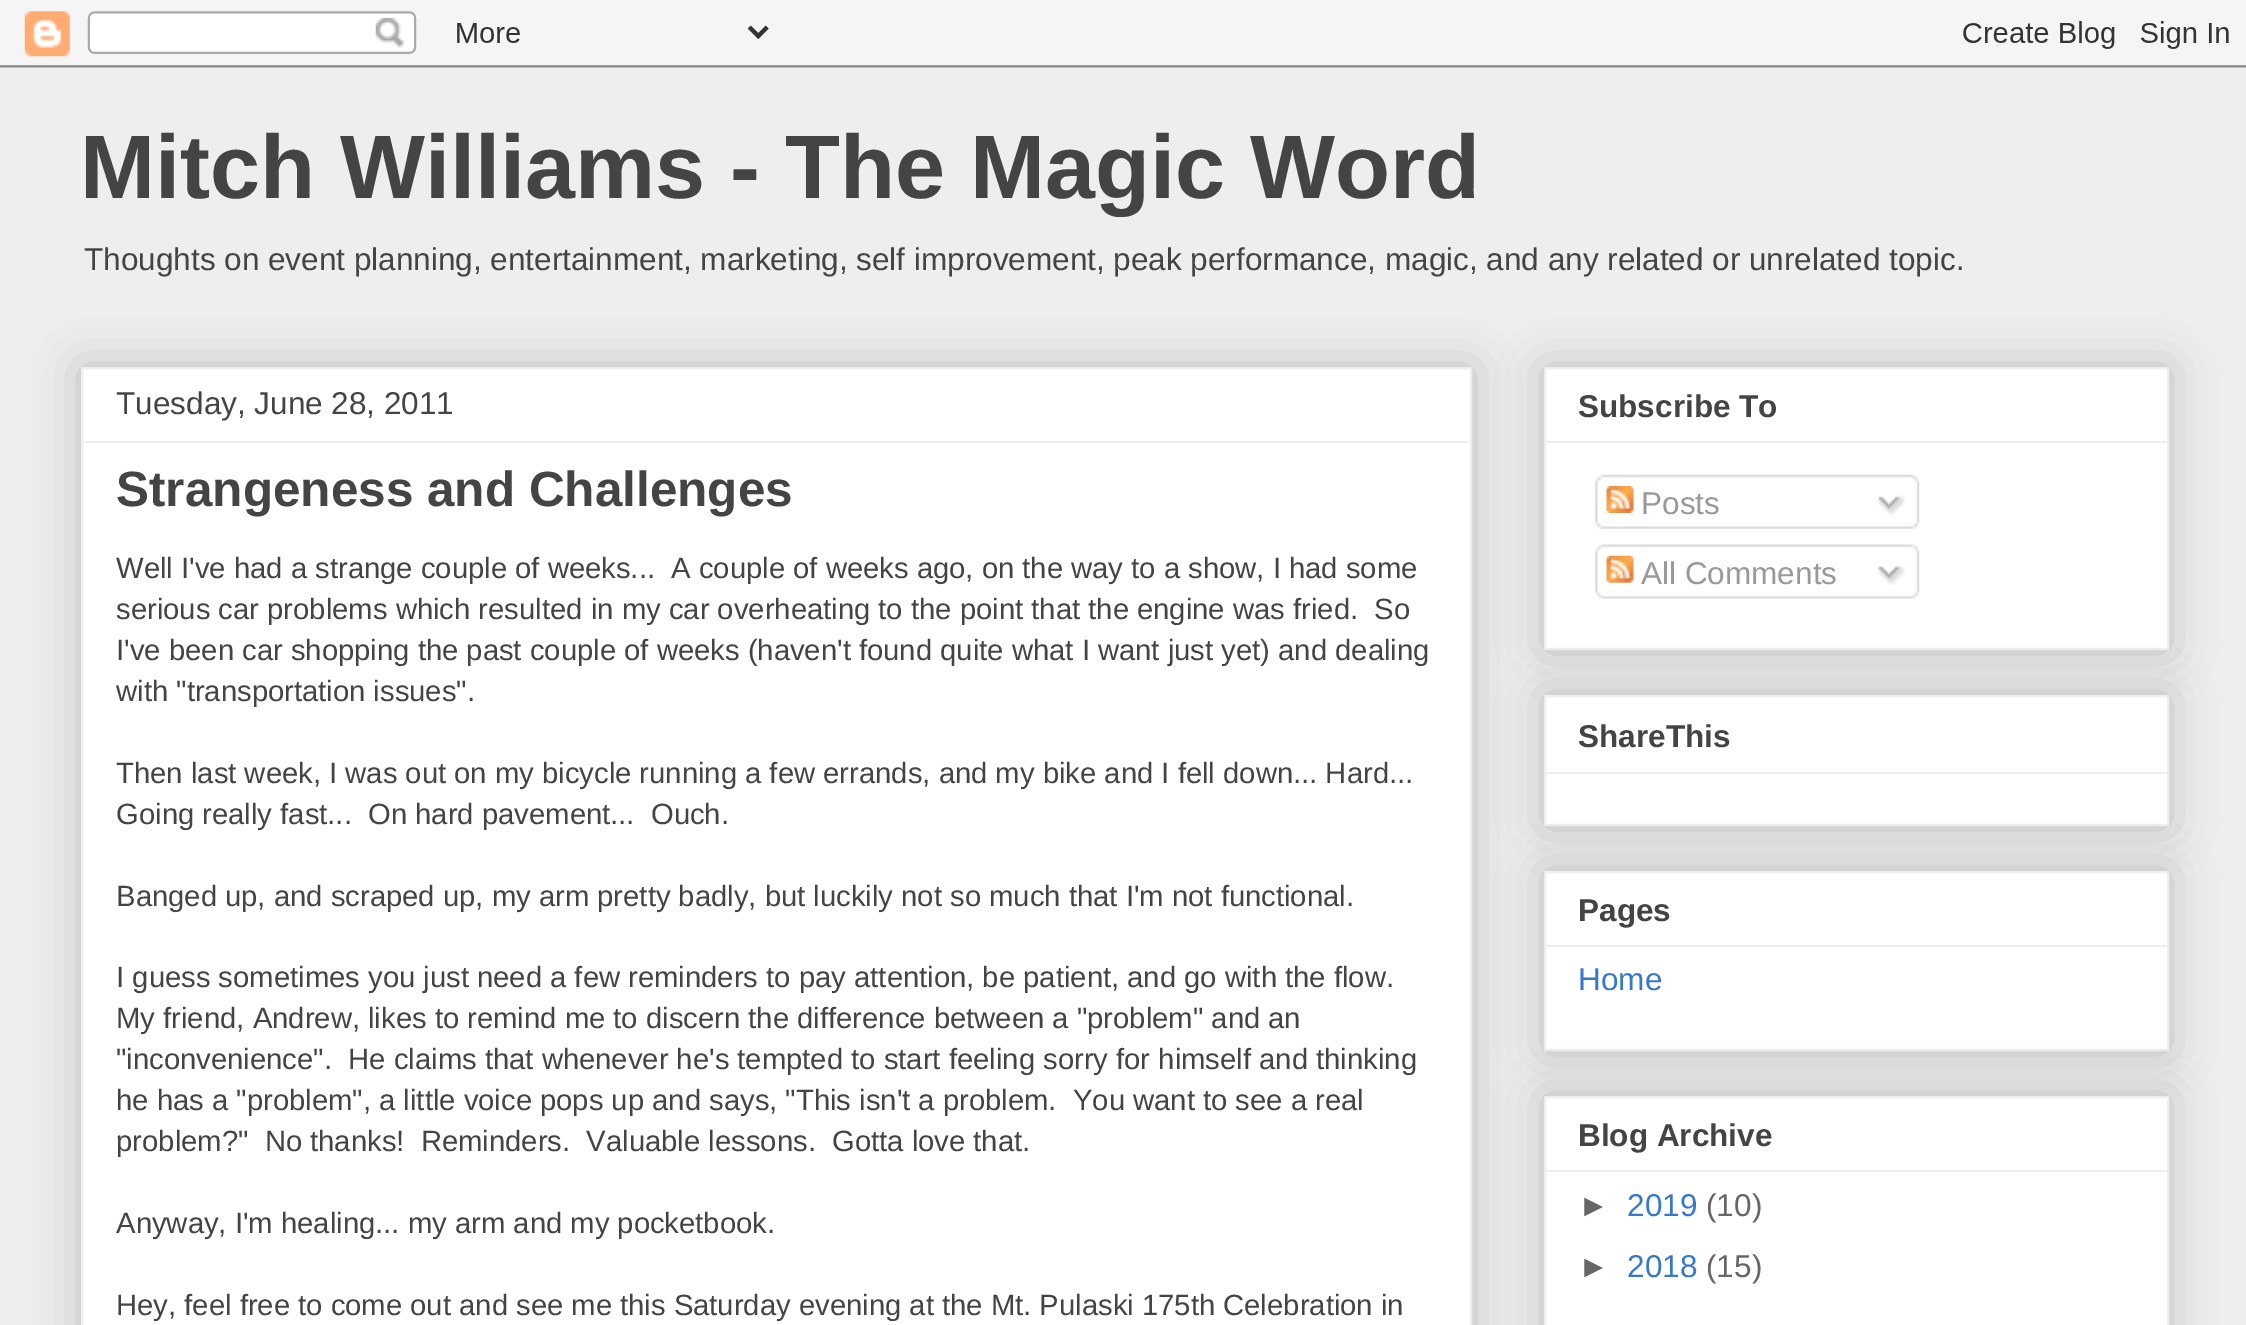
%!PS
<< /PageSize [2246 1325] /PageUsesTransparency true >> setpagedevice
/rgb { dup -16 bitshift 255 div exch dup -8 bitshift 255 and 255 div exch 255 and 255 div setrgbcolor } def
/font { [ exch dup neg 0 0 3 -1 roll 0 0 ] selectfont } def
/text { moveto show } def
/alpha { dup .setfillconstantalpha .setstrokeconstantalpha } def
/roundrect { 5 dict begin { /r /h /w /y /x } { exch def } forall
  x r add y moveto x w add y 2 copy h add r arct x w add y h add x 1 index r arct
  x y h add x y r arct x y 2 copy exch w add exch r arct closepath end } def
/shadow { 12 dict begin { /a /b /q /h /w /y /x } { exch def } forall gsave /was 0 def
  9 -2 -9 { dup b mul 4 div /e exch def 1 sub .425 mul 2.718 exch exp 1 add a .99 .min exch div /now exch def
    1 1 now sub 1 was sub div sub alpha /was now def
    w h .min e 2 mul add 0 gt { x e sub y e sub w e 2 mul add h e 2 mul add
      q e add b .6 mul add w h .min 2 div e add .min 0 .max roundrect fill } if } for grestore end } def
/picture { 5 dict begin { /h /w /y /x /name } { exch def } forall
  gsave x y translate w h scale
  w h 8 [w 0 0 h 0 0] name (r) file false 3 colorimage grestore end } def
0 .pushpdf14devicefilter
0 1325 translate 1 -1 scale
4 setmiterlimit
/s1 { /LiberationSans-Bold 90 font 16#444444 rgb } def
/s2 { /LiberationSans-Regular 31.5 font 16#444444 rgb } def
/s3 { /LiberationSans-Bold 49.5 font 16#444444 rgb } def
/s4 { /LiberationSans-Regular 29.25 font 16#444444 rgb } def
/s5 { /LiberationSans-Bold 31.5 font 16#444444 rgb } def
/s6 { /LiberationSans-Regular 31.5 font 16#999999 rgb } def
/s7 { /LiberationSans-Regular 31.5 font 16#3778CD rgb } def
/s8 { /LiberationSans-Regular 31.5 font 16#666666 rgb } def
16#EEEEEE rgb
0 0 2246 1325 rectfill
(pic1.raw) 0 0 2246 68 picture
s1
(Mitch Williams - The Magic Word) 80 198 text
s2
(Thoughts on event planning, entertainment, marketing, self improvement, peak performance, magic, and any related or unrelated topic.) 84 270 text
16#000000 rgb
81 367 1391 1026 0 22.5 0.2 shadow
16#FFFFFF rgb
82 368 moveto 1471 368 lineto 1471 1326 lineto 82 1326 lineto closepath gsave fill grestore
16#EEEEEE rgb
2 setlinewidth
stroke
s2
(Tuesday, June 28, 2011) 116 414 text
16#EEEEEE rgb
83 441 1386 2 rectfill
s3
(Strangeness and Challenges) 116 506 text
s4
(Well I've had a strange couple of weeks...  A couple of weeks ago, on the way to a show, I had some) 116 578 text
(serious car problems which resulted in my car overheating to the point that the engine was fried.  So) 116 619 text
(I've been car shopping the past couple of weeks \(haven't found quite what I want just yet\) and dealing) 116 660 text
(with "transportation issues".) 116 701 text
(Then last week, I was out on my bicycle running a few errands, and my bike and I fell down... Hard...) 116 783 text
(Going really fast...  On hard pavement...  Ouch.) 116 824 text
(Banged up, and scraped up, my arm pretty badly, but luckily not so much that I'm not functional.) 116 906 text
(I guess sometimes you just need a few reminders to pay attention, be patient, and go with the flow.) 116 987 text
(My friend, Andrew, likes to remind me to discern the difference between a "problem" and an) 116 1028 text
("inconvenience".  He claims that whenever he's tempted to start feeling sorry for himself and thinking) 116 1069 text
(he has a "problem", a little voice pops up and says, "This isn't a problem.  You want to see a real) 116 1110 text
(problem?"  No thanks!  Reminders.  Valuable lessons.  Gotta love that.) 116 1151 text
(Anyway, I'm healing... my arm and my pocketbook.) 116 1233 text
(Hey, feel free to come out and see me this Saturday evening at the Mt. Pulaski 175th Celebration in) 116 1315 text
16#000000 rgb
1544 367 625 283 0 22.5 0.2 shadow
16#FFFFFF rgb
1545 368 moveto 2168 368 lineto 2168 649 lineto 1545 649 lineto closepath gsave fill grestore
16#EEEEEE rgb
stroke
s5
(Subscribe To) 1578 417 text
16#EEEEEE rgb
1546 441 621 2 rectfill
(pic2.raw) 1595 474 325 48 picture
(pic3.raw) 1606 486 28 27 picture
s6
(Posts) 1641 514 text
(pic4.raw) 1876 495 30 20 picture
(pic5.raw) 1595 522 324 7 picture
(pic6.raw) 1595 544 325 48 picture
(pic7.raw) 1606 555 28 28 picture
(All Comments) 1641 584 text
(pic8.raw) 1876 565 30 20 picture
(pic9.raw) 1595 591 324 8 picture
16#000000 rgb
1544 695 625 131 0 22.5 0.2 shadow
16#FFFFFF rgb
1545 696 moveto 2168 696 lineto 2168 825 lineto 1545 825 lineto closepath gsave fill grestore
16#EEEEEE rgb
stroke
s5
(ShareThis) 1578 747 text
16#EEEEEE rgb
1546 772 621 2 rectfill
16#000000 rgb
1544 871 625 180 0 22.5 0.2 shadow
16#FFFFFF rgb
1545 872 moveto 2168 872 lineto 2168 1050 lineto 1545 1050 lineto closepath gsave fill grestore
16#EEEEEE rgb
stroke
s5
(Pages) 1578 921 text
16#EEEEEE rgb
1546 945 621 2 rectfill
s7
(Home) 1578 990 text
16#000000 rgb
1544 1096 625 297 0 22.5 0.2 shadow
16#FFFFFF rgb
1545 1097 moveto 2168 1097 lineto 2168 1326 lineto 1545 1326 lineto closepath gsave fill grestore
16#EEEEEE rgb
stroke
s5
(Blog Archive) 1578 1146 text
16#EEEEEE rgb
1546 1170 621 2 rectfill
s8
(►) 1578 1216 text
s7
(2019) 1627 1216 text
s8
(\(10\)) 1706 1216 text
(►) 1578 1277 text
s7
(2018) 1627 1277 text
s8
(\(15\)) 1706 1277 text
.poppdf14devicefilter showpage
